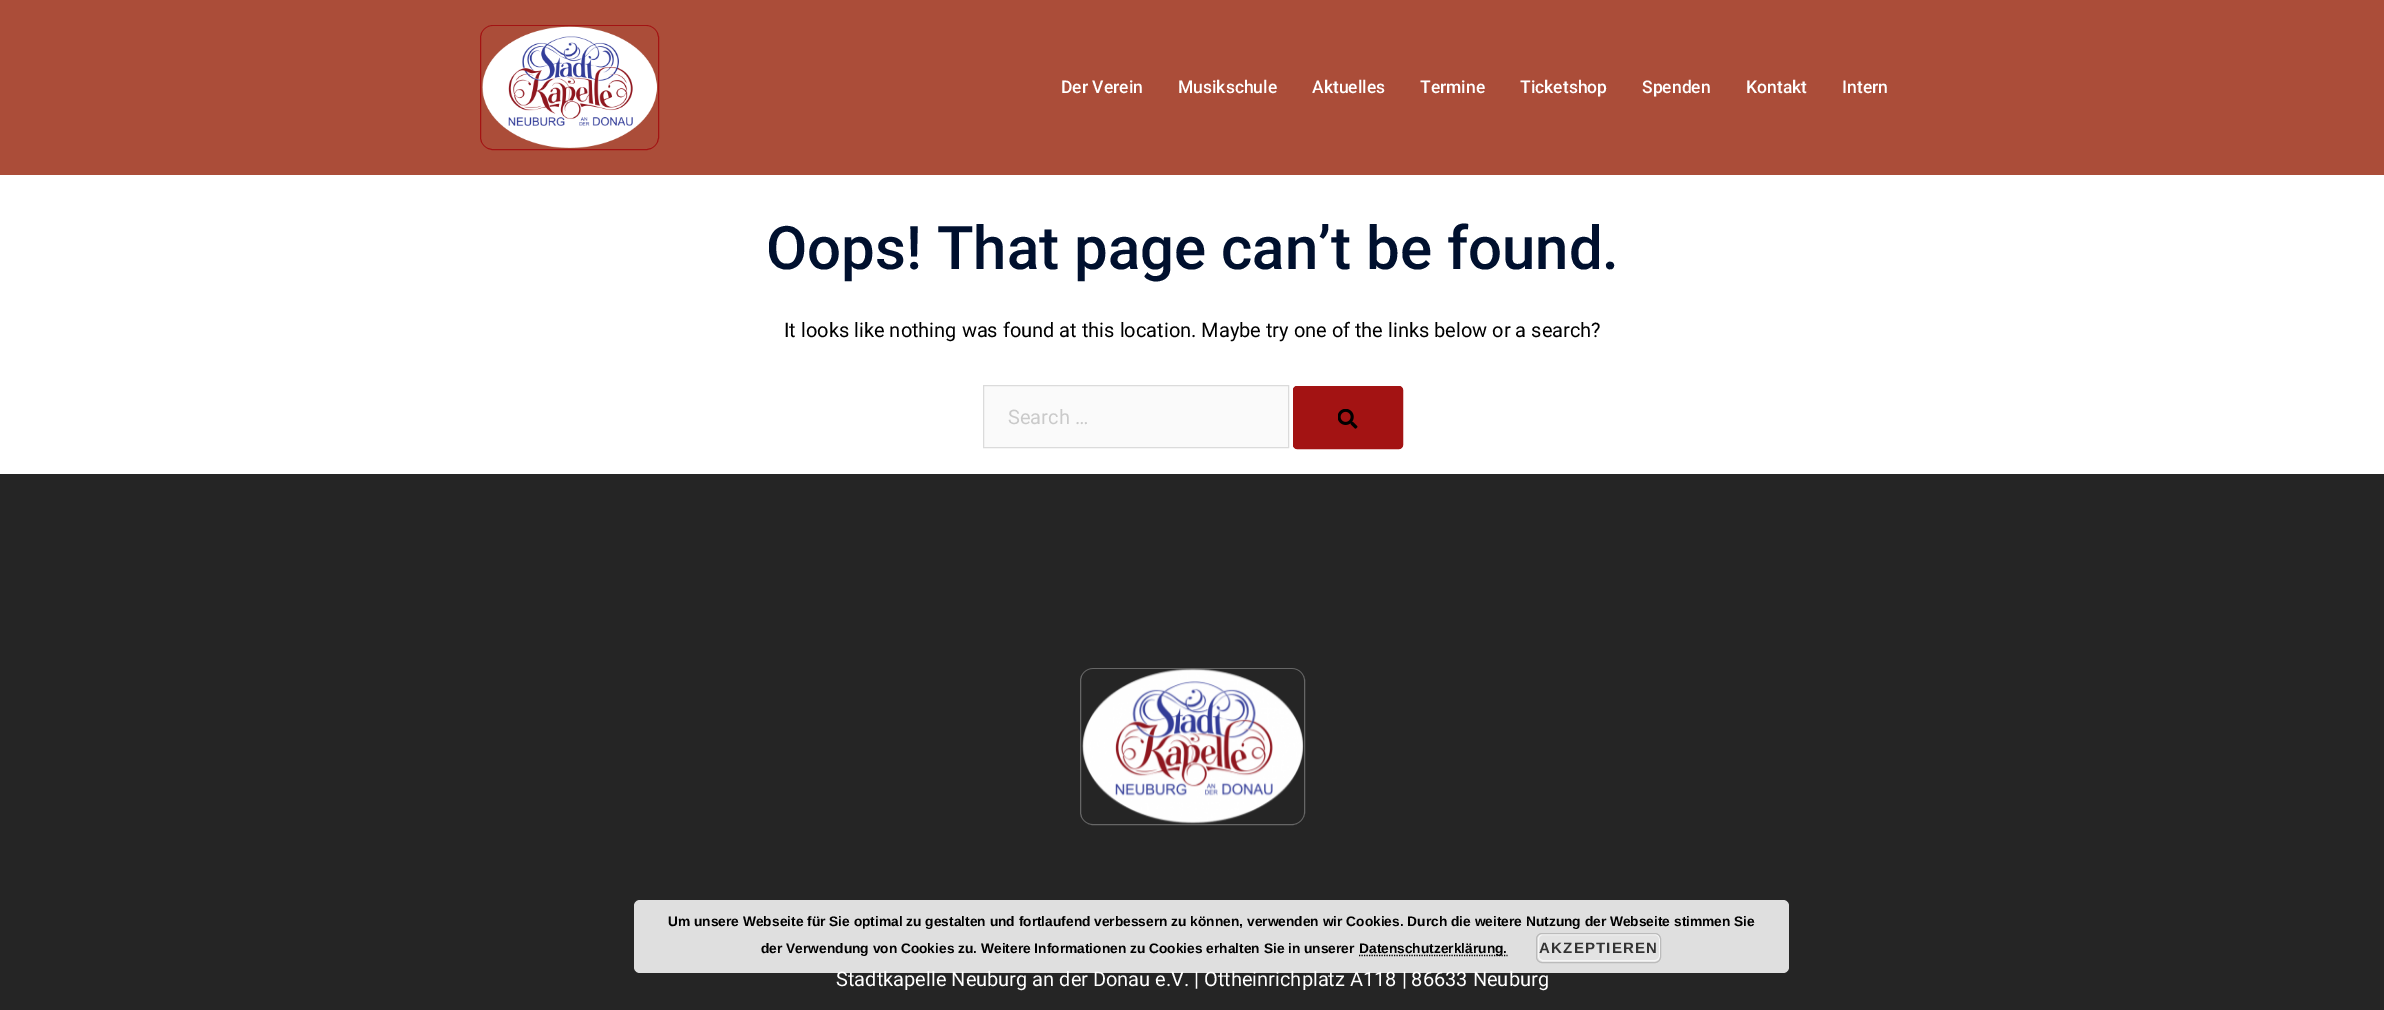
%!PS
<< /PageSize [2384 1010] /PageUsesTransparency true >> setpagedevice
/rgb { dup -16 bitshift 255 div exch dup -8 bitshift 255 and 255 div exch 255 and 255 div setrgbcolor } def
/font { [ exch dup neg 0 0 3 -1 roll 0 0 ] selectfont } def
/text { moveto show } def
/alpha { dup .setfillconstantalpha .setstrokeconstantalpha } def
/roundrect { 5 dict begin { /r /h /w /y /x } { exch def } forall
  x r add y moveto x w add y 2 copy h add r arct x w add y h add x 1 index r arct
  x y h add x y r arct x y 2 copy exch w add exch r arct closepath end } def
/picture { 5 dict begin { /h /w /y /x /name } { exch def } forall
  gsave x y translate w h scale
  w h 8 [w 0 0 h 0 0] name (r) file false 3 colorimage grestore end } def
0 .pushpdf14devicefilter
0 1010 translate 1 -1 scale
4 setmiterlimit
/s1 { /Roboto-Medium 17.5 font 16#FFFFFF rgb } def
/s2 { /Roboto-Medium 60 font 16#00102E rgb } def
/s3 { /Roboto-Regular 20 font 16#000000 rgb } def
/s4 { /Roboto-Regular 20 font 16#CACACA rgb } def
/s5 { /Roboto-Regular 20 font 16#FFFFFF rgb } def
/s6 { /LiberationSans-Bold 13.75 font 16#000000 rgb } def
16#FFFFFF rgb
0 0 2384 1010 rectfill
16#AB4D39 rgb
0 0 2384 175 rectfill
16#A31313 rgb
480.5 25.5 178 124 12.5 roundrect stroke
(pic1.raw) 482 26 175 122 picture
s1
(Der Verein) 1061 93 text
(Musikschule) 1178 93 text
(Aktuelles) 1312 93 text
(Termine) 1420 93 text
(Ticketshop) 1520 93 text
(Spenden) 1642 93 text
(Kontakt) 1746 93 text
(Intern) 1842 93 text
s2
(Oops! That page can’t be found.) 766 269 text
s3
(It looks like nothing was found at this location. Maybe try one of the links below or a search?) 784 337 text
16#FAFAFA rgb
983.5 385.5 moveto 1288.5 385.5 lineto 1288.5 447.5 lineto 983.5 447.5 lineto closepath gsave fill grestore
16#DBDBDB rgb
stroke
s4
(Search …) 1008 424 text
16#A31313 rgb
1293.5 386.5 109 62 3.5 roundrect gsave fill grestore
stroke
(pic2.raw) 1338 409 20 20 picture
16#252525 rgb
0 474 2384 536 rectfill
16#666666 rgb
1080.5 668.5 224 156 12.5 roundrect stroke
(pic3.raw) 1082 668 222 156 picture
s5
(Stadtkapelle Neuburg an der Donau e.V. | Ottheinrichplatz A118 | 86633 Neuburg) 836 986 text
0.85 alpha
634 900 1155 73 6 roundrect fill
1 alpha
s6
(Um unsere Webseite für Sie optimal zu gestalten und fortlaufend verbessern zu können, verwenden wir Cookies. Durch die weitere Nutzung der Webseite stimmen Sie) 668 926 text
(der Verwendung von Cookies zu. Weitere Informationen zu Cookies erhalten Sie in unserer) 761 953 text
1.2 setlinewidth
[1.25 1.25] 0 setdash
1359 955.5 moveto 1507.5 955.5 lineto stroke
(Datenschutzerklärung.) 1359 953 text
16#E3E3E3 rgb
1536 933 125 30 6 roundrect fill
16#F6F6F6 rgb
1 setlinewidth
[] 0 setdash
1538.5 934.5 121 26 4.5 roundrect stroke
16#BBBBBB rgb
1536.5 933.5 124 29 5.5 roundrect stroke
/LiberationSans-Bold 15 font
16#333333 rgb
1539 953 moveto 1.25 0 (AKZEPTIEREN) ashow
.poppdf14devicefilter showpage
